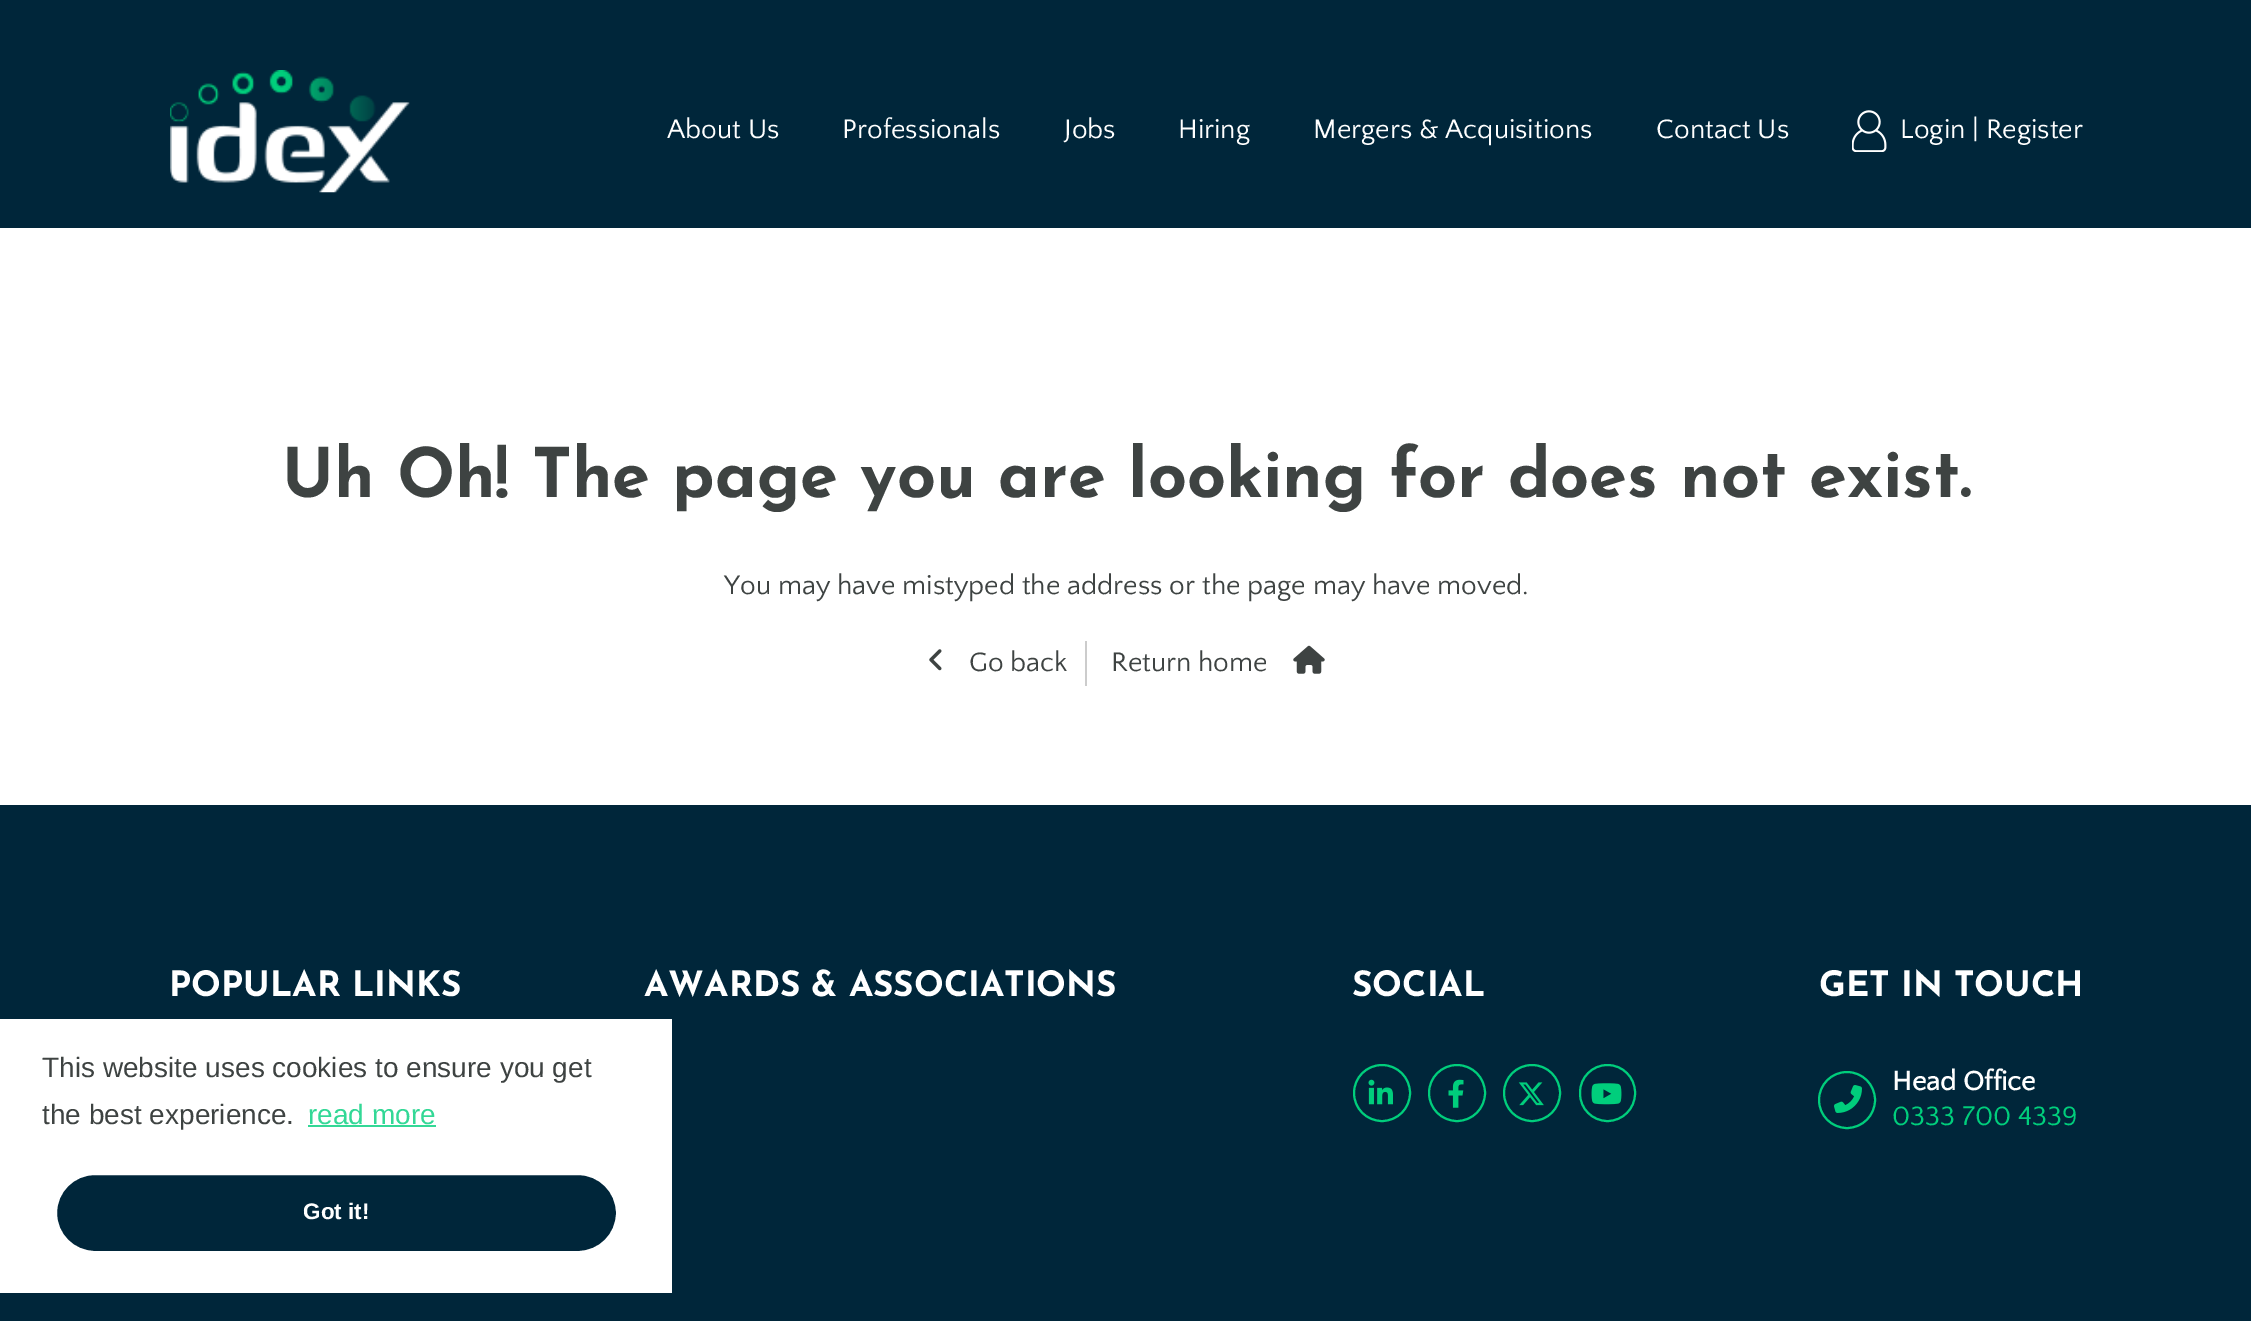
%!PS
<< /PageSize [2251 1321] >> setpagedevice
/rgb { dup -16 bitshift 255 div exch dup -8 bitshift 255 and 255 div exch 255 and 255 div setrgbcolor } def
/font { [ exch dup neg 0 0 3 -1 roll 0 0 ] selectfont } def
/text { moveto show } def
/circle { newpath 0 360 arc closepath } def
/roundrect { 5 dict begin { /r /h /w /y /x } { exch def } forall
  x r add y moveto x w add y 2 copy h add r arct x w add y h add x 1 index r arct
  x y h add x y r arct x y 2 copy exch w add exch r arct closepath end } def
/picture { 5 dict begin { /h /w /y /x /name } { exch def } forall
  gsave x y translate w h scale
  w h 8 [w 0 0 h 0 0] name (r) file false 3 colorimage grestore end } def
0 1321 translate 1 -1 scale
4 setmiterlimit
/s1 { /QuattrocentoSans-Regular 28 font 16#FFFFFF rgb } def
/s2 { /JosefinSans-Bold 68.4 font 16#3E4342 rgb } def
/s3 { /QuattrocentoSans-Regular 28 font 16#3E4342 rgb } def
/s4 { /JosefinSans-Bold 35 font 16#FFFFFF rgb } def
/s5 { /QuattrocentoSans-Bold 28 font 16#FFFFFF rgb } def
/s6 { /QuattrocentoSans-Regular 28 font 16#00CE7C rgb } def
/s7 { /LiberationSans-Regular 28 font 16#3E4342 rgb } def
/s8 { /LiberationSans-Regular 28 font 16#33D896 rgb } def
/s9 { /LiberationSans-Bold 22.5 font 16#FFFFFF rgb } def
16#FFFFFF rgb
0 0 2251 1321 rectfill
16#00263A rgb
0 0 2251 228 rectfill
(pic1.raw) 170 70 240 123 picture
s1
(About Us) 667 138 text
(Professionals) 842 138 text
(Jobs) 1064 138 text
(Hiring) 1178 138 text
(Mergers & Acquisitions) 1313 138 text
(Contact Us) 1656 138 text
(pic2.raw) 1852 110 35 42 picture
(Login | Register) 1900 138 text
s2
(Uh Oh! The page you are looking for does not exist.) 282 497 text
s3
(You may have mistyped the address or the page may have moved.) 724 594 text
16#CCCCCC rgb
1085 641 2 45 rectfill
(pic3.raw) 929 649 13 22 picture
s3
(Go back) 969 671 text
(Return home) 1111 671 text
(pic4.raw) 1293 645 32 29 picture
16#00263A rgb
0 805 2251 516 rectfill
s4
(POPULAR LINKS) 169 996 text
(AWARDS & ASSOCIATIONS) 644 996 text
(SOCIAL) 1352 996 text
16#00CE7C rgb
2 setlinewidth
1382 1093 28 circle stroke
(pic5.raw) 1368 1079 25 26 picture
1457 1093 28 circle stroke
(pic6.raw) 1448 1079 16 29 picture
1532 1093 28 circle stroke
(pic7.raw) 1518 1082 26 24 picture
1580 1065 55 56 27.5 roundrect stroke
(pic8.raw) 1591 1083 31 22 picture
s4
(GET IN TOUCH) 1819 996 text
16#00CE7C rgb
1847 1100 28 circle stroke
(pic9.raw) 1834 1085 28 28 picture
s5
(Head Office) 1892 1090 text
s6
(0333 700 4339) 1892 1125 text
16#FFFFFF rgb
0 1019 672 274 rectfill
s7
(This website uses cookies to ensure you get) 42 1077 text
(the best experience.) 42 1124 text
s8
(read more) 308 1124 text
308 1125 128 2 rectfill
16#00263A rgb
55 1173 563 80 40 roundrect gsave fill grestore
16#FFFFFF rgb
4 setlinewidth
stroke
s9
(Got it!) 303 1219 text
showpage
